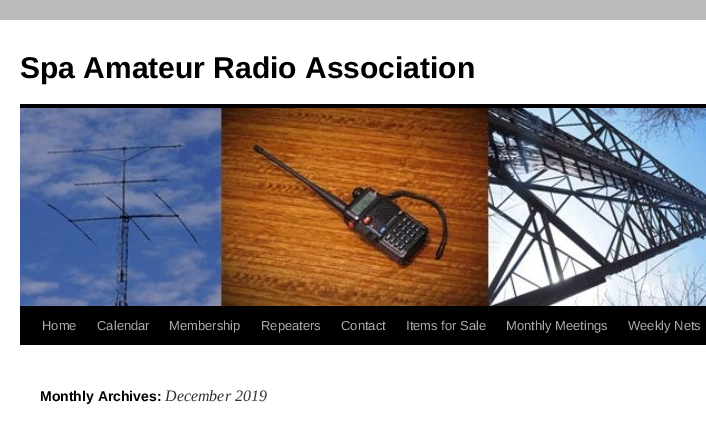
%!PS
<< /PageSize [706 438] >> setpagedevice
/rgb { dup -16 bitshift 255 div exch dup -8 bitshift 255 and 255 div exch 255 and 255 div setrgbcolor } def
/font { [ exch dup neg 0 0 3 -1 roll 0 0 ] selectfont } def
/text { moveto show } def
/picture { 5 dict begin { /h /w /y /x /name } { exch def } forall
  gsave x y translate w h scale
  w h 8 [w 0 0 h 0 0] name (r) file false 3 colorimage grestore end } def
0 438 translate 1 -1 scale
4 setmiterlimit
/s1 { /LiberationSans-Bold 30 font 16#000000 rgb } def
/s2 { /LiberationSans-Regular 13 font 16#AAAAAA rgb } def
/s3 { /LiberationSans-Bold 14 font 16#000000 rgb } def
/s4 { /LiberationSerif-Italic 16 font 16#333333 rgb } def
16#BABABA rgb
0 0 706 438 rectfill
16#FFFFFF rgb
0 20 706 418 rectfill
s1
(Spa Amateur Radio Association) 20 78 text
20 104 686 4 rectfill
20 306 686 39 rectfill
(pic1.raw) 20 108 686 198 picture
s2
(Home) 42 330 text
(Calendar) 97 330 text
(Membership) 169 330 text
(Repeaters) 261 330 text
(Contact) 341 330 text
(Items for Sale) 406 330 text
(Monthly Meetings) 506 330 text
(Weekly Nets) 628 330 text
s3
(Monthly Archives:) 40 401 text
s4
(December 2019) 165 401 text
showpage
